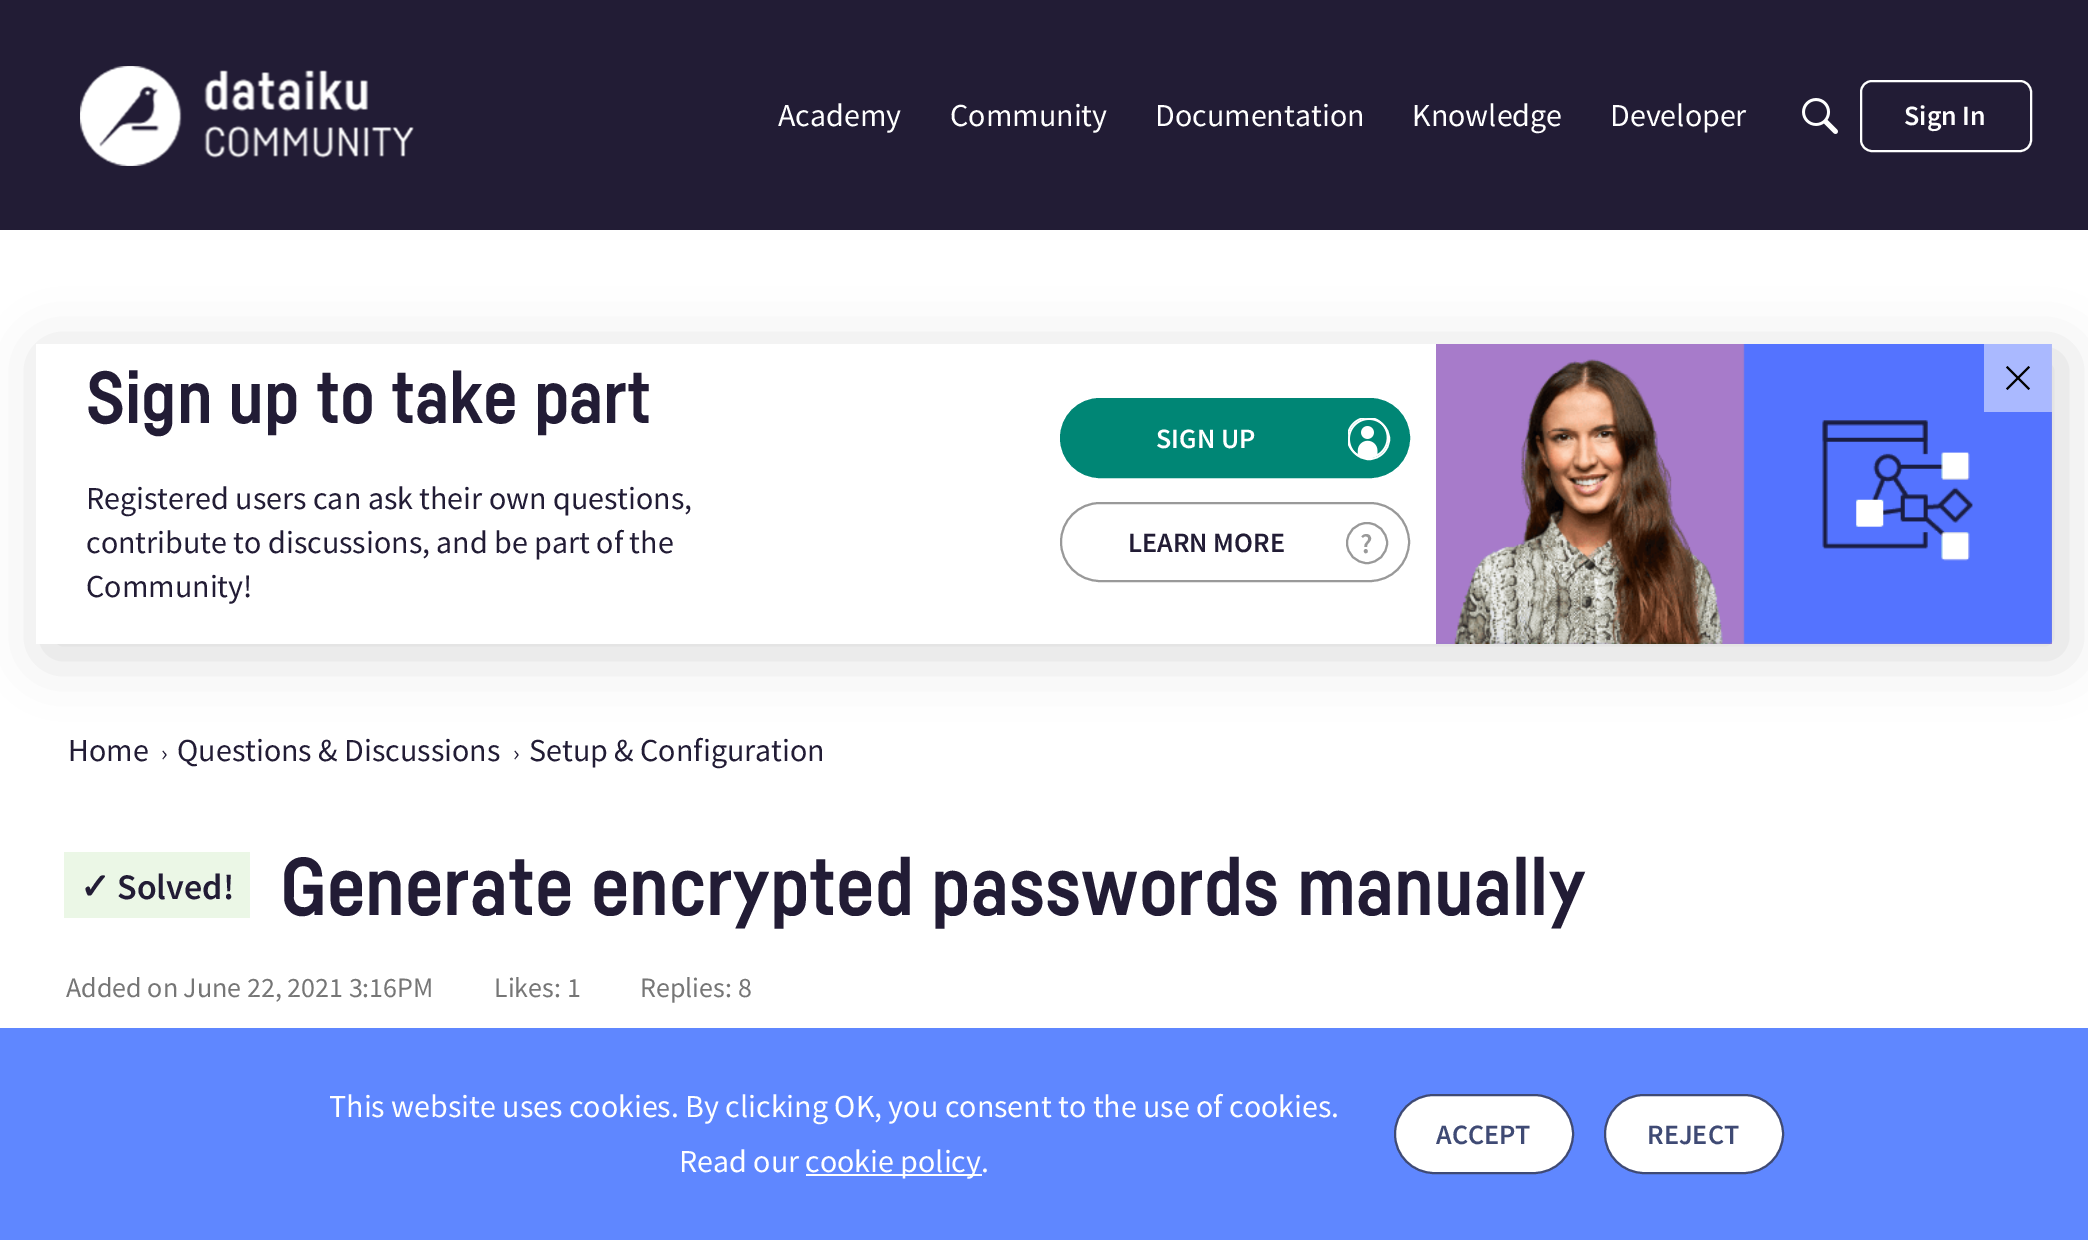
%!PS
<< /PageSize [2088 1240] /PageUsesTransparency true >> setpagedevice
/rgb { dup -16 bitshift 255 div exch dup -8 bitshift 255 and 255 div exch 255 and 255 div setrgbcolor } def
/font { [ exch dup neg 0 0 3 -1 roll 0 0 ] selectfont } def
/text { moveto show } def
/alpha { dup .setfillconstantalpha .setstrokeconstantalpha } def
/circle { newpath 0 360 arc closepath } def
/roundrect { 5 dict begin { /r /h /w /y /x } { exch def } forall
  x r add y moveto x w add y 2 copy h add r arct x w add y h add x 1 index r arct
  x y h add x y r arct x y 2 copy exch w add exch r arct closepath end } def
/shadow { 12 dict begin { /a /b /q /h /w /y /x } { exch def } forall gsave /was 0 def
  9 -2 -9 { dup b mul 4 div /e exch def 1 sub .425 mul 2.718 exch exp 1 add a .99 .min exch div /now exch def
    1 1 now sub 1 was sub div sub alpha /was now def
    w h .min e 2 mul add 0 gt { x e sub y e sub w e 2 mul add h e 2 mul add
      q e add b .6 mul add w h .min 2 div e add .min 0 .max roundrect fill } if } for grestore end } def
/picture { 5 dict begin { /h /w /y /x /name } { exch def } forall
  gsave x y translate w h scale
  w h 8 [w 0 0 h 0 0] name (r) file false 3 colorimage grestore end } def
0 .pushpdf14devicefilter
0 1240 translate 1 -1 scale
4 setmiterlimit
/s1 { /SourceSansPro-Regular 32 font 16#FFFFFF rgb } def
/s2 { /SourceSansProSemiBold-SemiBold 28 font 16#FFFFFF rgb } def
/s3 { /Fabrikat-Bold 72 font 16#221C35 rgb } def
/s4 { /SourceSansPro-Regular 32 font 16#221C35 rgb } def
/s5 { /SourceSansProSemiBold-SemiBold 28 font 16#221C35 rgb } def
/s6 { /SourceSansProSemiBold-SemiBold 28 font 16#999999 rgb } def
/s7 { /SourceSansPro-Regular 24 font 16#221C35 rgb } def
/s8 { /DejaVuSans-Bold 36 font 16#221C35 rgb } def
/s9 { /SourceSansProSemiBold-SemiBold 36 font 16#221C35 rgb } def
/s10 { /Fabrikat-Bold 80 font 16#221C35 rgb } def
/s11 { /SourceSansPro-Regular 28 font 16#767676 rgb } def
/s12 { /SourceSansProSemiBold-SemiBold 28 font 16#3F4A74 rgb } def
16#FFFFFF rgb
0 0 2088 1240 rectfill
16#221C35 rgb
0 0 2088 230 rectfill
(pic1.raw) 80 66 334 100 picture
s1
(Academy) 778 126 text
(Community) 950 126 text
(Documentation) 1155 126 text
(Knowledge) 1412 126 text
(Developer) 1610 126 text
(pic2.raw) 1802 98 36 36 picture
2 setlinewidth
1861 81 170 70 11 roundrect stroke
s2
(Sign In) 1904 125 text
gsave
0 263 moveto 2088 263 lineto 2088 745 lineto 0 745 lineto closepath 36 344 moveto 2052 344 lineto 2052 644 lineto 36 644 lineto closepath eoclip newpath
16#000000 rgb
46 354 2016 300 0 30 0.15 shadow
grestore
(pic3.raw) 1436 344 616 300 picture
s3
(Sign up to take part) 86 423 text
s4
(Registered users can ask their own questions,) 86 509 text
(contribute to discussions, and be part of the) 86 553 text
(Community!) 86 597 text
16#008675 rgb
1061 399 348 78 39 roundrect gsave fill grestore
stroke
s2
(SIGN UP) 1156 448 text
1369 439 20 circle stroke
(pic4.raw) 1348 418 40 40 picture
16#999999 rgb
1061 503 348 78 39 roundrect stroke
s5
(LEARN MORE) 1128 552 text
16#999999 rgb
1367 543 20 circle stroke
(?) 1360 553 text
0.5 alpha
16#FFFFFF rgb
1984 344 68 68 rectfill
1 alpha
16#000000 rgb
2028.5 366 moveto 2030 367.5 lineto 2007.5 390 lineto 2006 388.5 lineto closepath fill
2006 367.5 moveto 2007.5 366 lineto 2030 388.5 lineto 2028.5 390 lineto closepath fill
s4
(Home) 68 761 text
s7
(›) 161 761 text
s4
(Questions & Discussions) 177 761 text
s7
(›) 513 761 text
s4
(Setup & Configuration) 529 761 text
16#EBF7E6 rgb
64 852 186 66 rectfill
s8
(✓) 80 899 text
s9
(Solved!) 117 899 text
s10
(Generate encrypted passwords manually) 280 915 text
s11
(Added on June 22, 2021 3:16PM) 66 997 text
(Likes: 1) 494 997 text
(Replies: 8) 640 997 text
16#5F87FF rgb
0 1028 2088 212 rectfill
s1
(This website uses cookies. By clicking OK, you consent to the use of cookies.) 329 1117 text
(Read our) 679 1172 text
806 1174 176 2 rectfill
(cookie policy.) 805 1172 text
1395 1095 178 78 39 roundrect gsave fill grestore
16#3F4A74 rgb
stroke
s12
(ACCEPT) 1436 1144 text
16#FFFFFF rgb
1605 1095 178 78 39 roundrect gsave fill grestore
16#3F4A74 rgb
stroke
(REJECT) 1647 1144 text
.poppdf14devicefilter showpage
